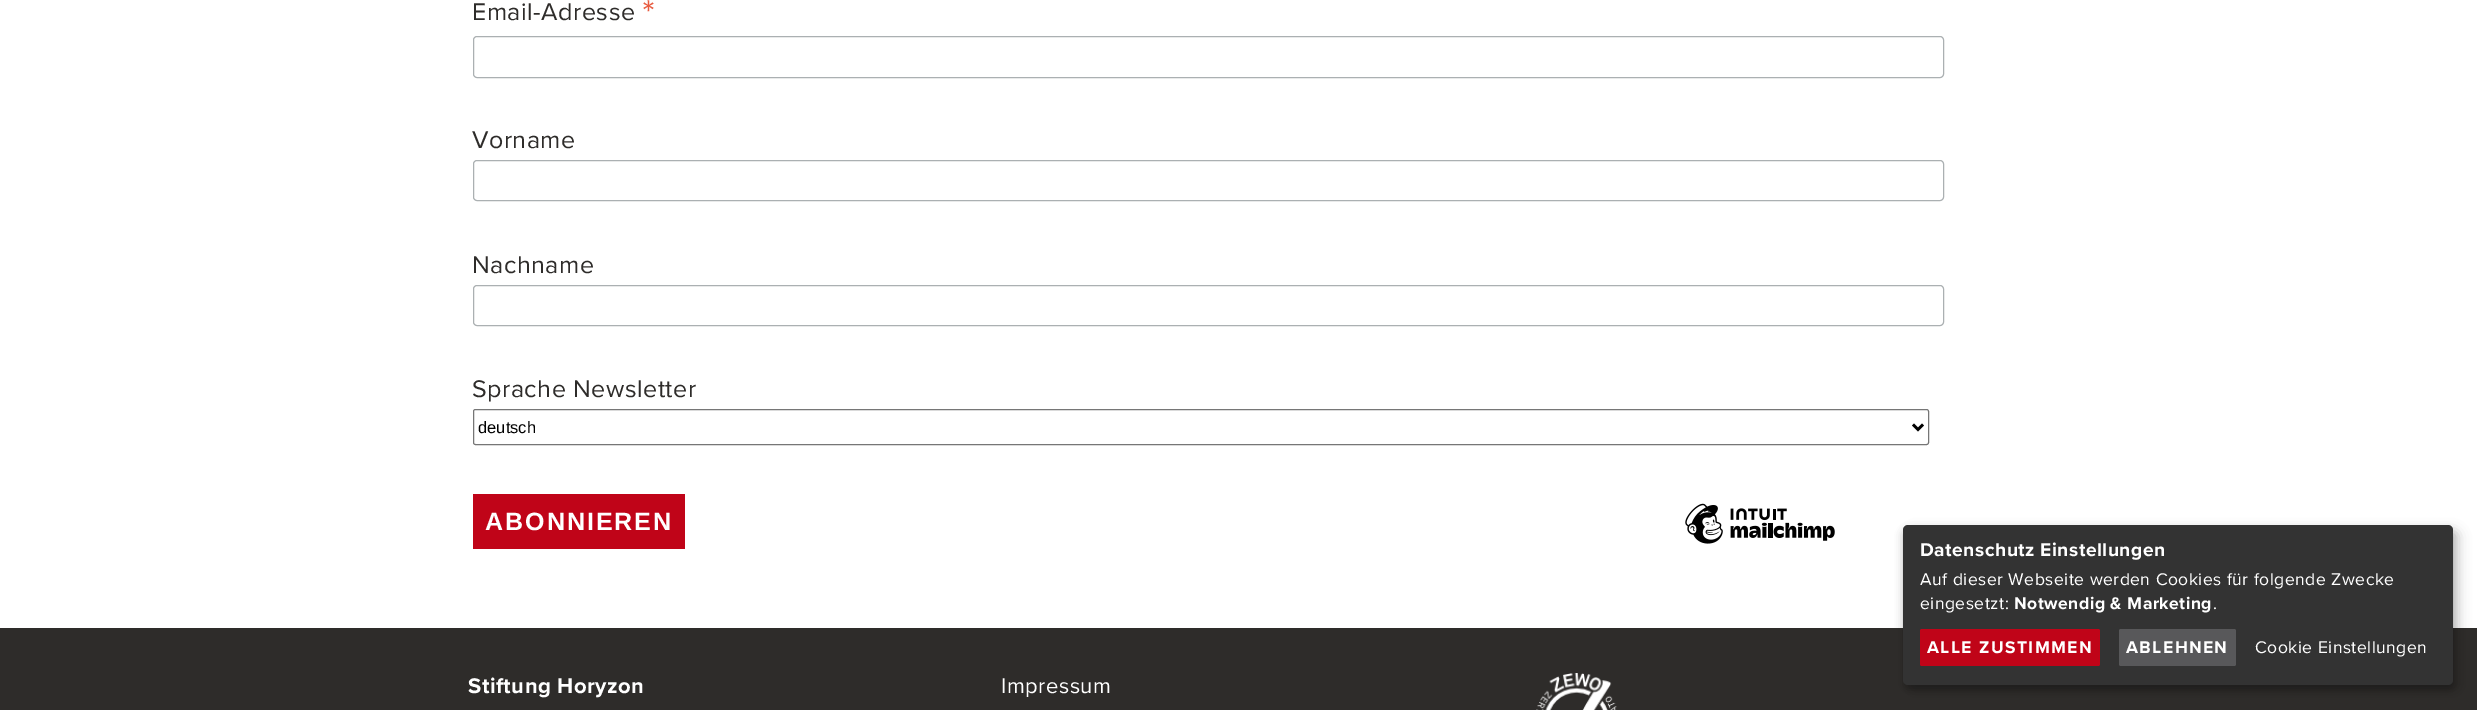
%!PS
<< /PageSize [2477 710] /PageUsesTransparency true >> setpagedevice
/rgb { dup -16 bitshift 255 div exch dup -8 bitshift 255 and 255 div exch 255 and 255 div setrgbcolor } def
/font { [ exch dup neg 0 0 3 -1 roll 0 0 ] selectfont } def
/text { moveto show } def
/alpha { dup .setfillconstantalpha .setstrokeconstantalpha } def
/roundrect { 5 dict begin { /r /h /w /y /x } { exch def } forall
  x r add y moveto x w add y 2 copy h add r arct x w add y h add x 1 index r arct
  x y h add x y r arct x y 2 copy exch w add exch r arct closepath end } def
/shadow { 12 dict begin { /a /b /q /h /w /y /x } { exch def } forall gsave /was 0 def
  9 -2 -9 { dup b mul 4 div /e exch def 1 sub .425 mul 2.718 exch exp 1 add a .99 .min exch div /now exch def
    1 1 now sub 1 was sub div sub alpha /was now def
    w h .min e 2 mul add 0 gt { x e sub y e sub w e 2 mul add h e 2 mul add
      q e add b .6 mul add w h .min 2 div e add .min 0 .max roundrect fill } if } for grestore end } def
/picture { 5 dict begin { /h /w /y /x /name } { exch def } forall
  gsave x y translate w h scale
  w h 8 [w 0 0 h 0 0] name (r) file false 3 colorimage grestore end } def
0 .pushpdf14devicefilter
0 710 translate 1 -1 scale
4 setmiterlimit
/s1 { /LiberationSans-Regular 16.5 font 16#000000 rgb } def
16#FFFFFF rgb
0 0 2477 710 rectfill
/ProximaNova-Regular 25 font
16#2E2C2A rgb
472 20 moveto 0.5 0 (Email-Adresse) ashow
/ProximaNova-Regular 38 font
16#E85C41 rgb
642 26 moveto 0.5 0 (*) ashow
16#ABB0B2 rgb
473.5 36.5 1470 41 3.5 roundrect stroke
/ProximaNova-Regular 25 font
16#2E2C2A rgb
472 148 moveto 0.5 0 (Vorname) ashow
16#ABB0B2 rgb
473.5 160.5 1470 40 3.5 roundrect stroke
16#2E2C2A rgb
472 273 moveto 0.5 0 (Nachname) ashow
16#ABB0B2 rgb
473.5 285.5 1470 40 3.5 roundrect stroke
16#2E2C2A rgb
472 397 moveto 0.5 0 (Sprache Newsletter) ashow
16#767676 rgb
473.5 409.5 1455 35 2 roundrect stroke
16#000000 rgb
2.5 setlinewidth
1913 424.5 moveto 1918 429.5 lineto 1923 424.5 lineto stroke
s1
(deutsch) 478 433 text
16#C00418 rgb
473 494 212 55 rectfill
/LiberationSans-Bold 25 font
16#FFFFFF rgb
485 530 moveto 2 0 (ABONNIEREN) ashow
(pic1.raw) 1685 503 150 41 picture
16#2E2C2A rgb
0 628 2477 82 rectfill
16#000000 rgb
1909 531 550 160 5 6 0.19 shadow
1903 530 550 160 5 4 0.2 shadow
16#333333 rgb
1903 525 550 160 5 roundrect fill
/ProximaNova-Bold 19.25 font
16#FFFFFF rgb
1920 556 moveto 0.5 0 (Datenschutz Einstellungen) ashow
/ProximaNova-Regular 17.5 font
1920 585 moveto 0.5 0 (Auf dieser Webseite werden Cookies für folgende Zwecke) ashow
1920 609 moveto 0.5 0 (eingesetzt:) ashow
/ProximaNova-Bold 17.5 font
2014 609 moveto 0.5 0 (Notwendig & Marketing) ashow
/ProximaNova-Regular 17.5 font
2213 609 moveto 0.5 0 (.) ashow
16#C00418 rgb
1920 629 180 37 2 roundrect fill
/ProximaNova-Bold 17.5 font
16#FFFFFF rgb
1927 653 moveto 1.4 0 (ALLE ZUSTIMMEN) ashow
16#58585A rgb
2119 629 117 37 2 roundrect fill
16#FFFFFF rgb
2126 653 moveto 1.4 0 (ABLEHNEN) ashow
/ProximaNova-Regular 17.5 font
2255 653 moveto 0.5 0 (Cookie Einstellungen) ashow
/ProximaNova-Bold 22 font
468 693 moveto 0.5 0 (Stiftung Horyzon) ashow
/ProximaNova-Regular 22 font
1001 693 moveto 0.5 0 (Impressum) ashow
(pic2.raw) 1536 673 81 37 picture
.poppdf14devicefilter showpage
